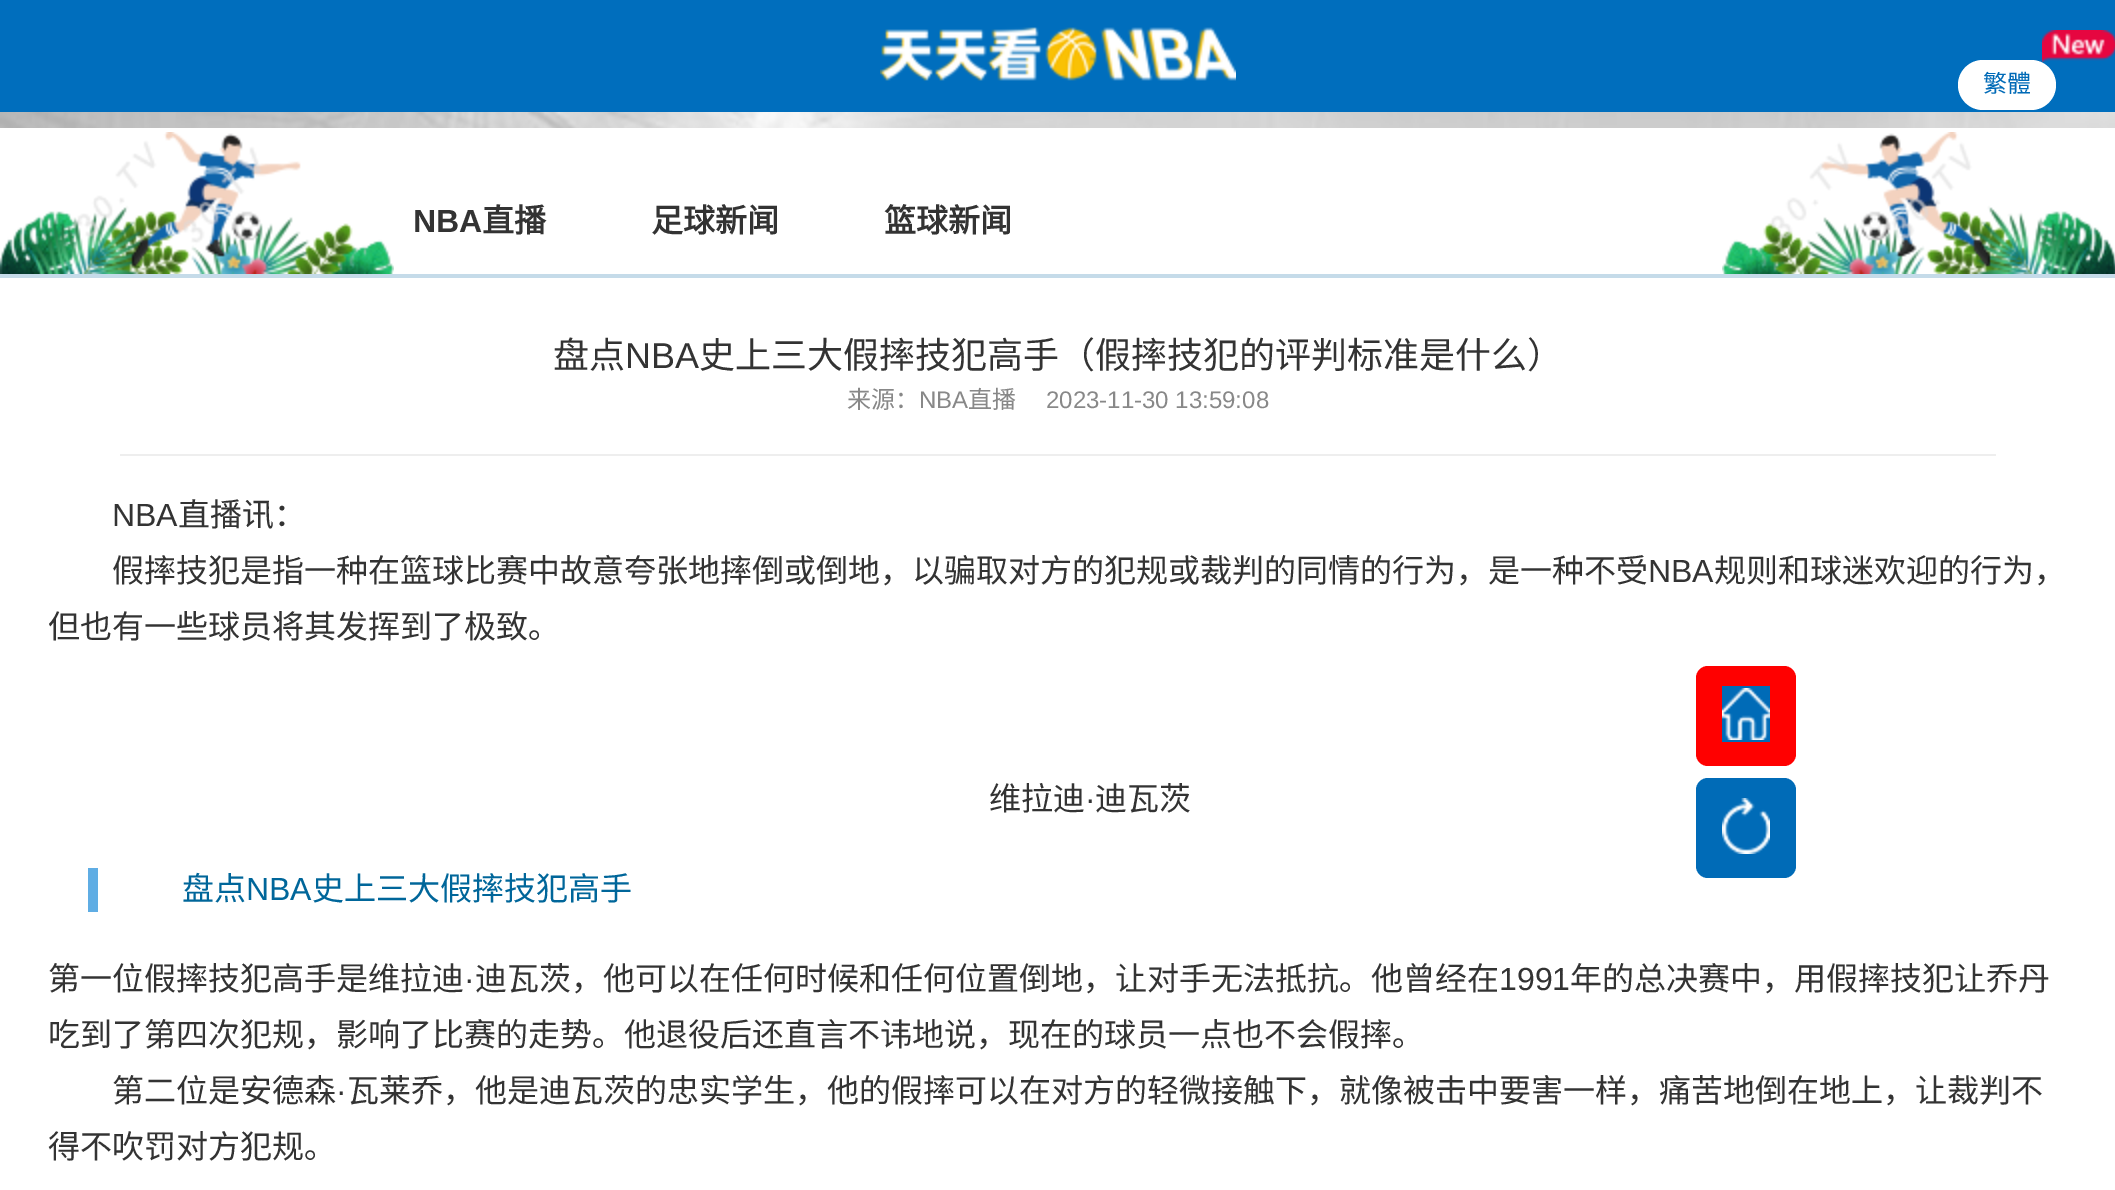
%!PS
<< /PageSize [2115 1190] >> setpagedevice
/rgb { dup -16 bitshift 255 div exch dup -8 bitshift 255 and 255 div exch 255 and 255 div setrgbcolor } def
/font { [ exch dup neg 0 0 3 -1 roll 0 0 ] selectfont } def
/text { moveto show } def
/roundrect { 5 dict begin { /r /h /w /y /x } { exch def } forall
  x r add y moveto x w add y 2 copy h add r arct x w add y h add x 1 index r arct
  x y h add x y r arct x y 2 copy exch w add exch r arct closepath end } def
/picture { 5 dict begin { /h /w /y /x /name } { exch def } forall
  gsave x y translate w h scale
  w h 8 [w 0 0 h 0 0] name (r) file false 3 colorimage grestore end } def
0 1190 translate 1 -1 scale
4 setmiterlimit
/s1 { /NotoSansCJKSC-Regular 24 font 16#006AB7 rgb } def
/s2 { /LiberationSans-Bold 32 font 16#333333 rgb } def
/s3 { /NotoSansCJKSC-Bold 32 font 16#333333 rgb } def
/s4 { /NotoSansCJKSC-Regular 36 font 16#333333 rgb } def
/s5 { /LiberationSans-Regular 36 font 16#333333 rgb } def
/s6 { /NotoSansCJKSC-Regular 24 font 16#888888 rgb } def
/s7 { /LiberationSans-Regular 24 font 16#888888 rgb } def
/s8 { /LiberationSans-Regular 32 font 16#333333 rgb } def
/s9 { /NotoSansCJKSC-Regular 32 font 16#333333 rgb } def
/s10 { /NotoSansCJKSC-Regular 32 font 16#00669A rgb } def
/s11 { /LiberationSans-Regular 32 font 16#00669A rgb } def
16#FFFFFF rgb
0 0 2115 1190 rectfill
(pic1.raw) 0 112 2115 16 picture
16#006EBD rgb
0 0 2115 112 rectfill
(pic2.raw) 880 27 356 54 picture
16#FFFFFF rgb
1958 60 98 50 25 roundrect fill
(pic3.raw) 2042 30 73 32 picture
s1
(繁體) 1983 92 text
16#C5DBE9 rgb
0 274 2115 4 rectfill
(pic4.raw) 0 132 394 142 picture
s2
(NBA) 413 232 text
s3
(直播) 482 232 text
(足球新闻) 651 232 text
(篮球新闻) 884 232 text
(pic5.raw) 1722 132 393 142 picture
s4
(盘点) 553 368 text
s5
(NBA) 625 368 text
s4
(史上三大假摔技犯高手（假摔技犯的评判标准是什么）) 699 368 text
s6
(来源：) 847 408 text
s7
(NBA) 919 408 text
s6
(直播) 968 408 text
s7
(2023-11-30 13:59:08) 1046 408 text
16#EEEEEE rgb
120 454 1876 2 rectfill
s8
(NBA) 112 526 text
s9
(直播讯：) 178 526 text
(假摔技犯是指一种在篮球比赛中故意夸张地摔倒或倒地，以骗取对方的犯规或裁判的同情的行为，是一种不受) 112 582 text
s8
(NBA) 1648 582 text
s9
(规则和球迷欢迎的行为，) 1714 582 text
(但也有一些球员将其发挥到了极致。) 48 638 text
(维拉迪) 989 810 text
s8
(·) 1085 810 text
s9
(迪瓦茨) 1095 810 text
16#5FADE4 rgb
88 868 10 44 rectfill
s10
(盘点) 182 900 text
s11
(NBA) 246 900 text
s10
(史上三大假摔技犯高手) 312 900 text
s9
(第一位假摔技犯高手是维拉迪) 48 990 text
s8
(·) 464 990 text
s9
(迪瓦茨，他可以在任何时候和任何位置倒地，让对手无法抵抗。他曾经在) 475 990 text
s8
(1991) 1499 990 text
s9
(年的总决赛中，用假摔技犯让乔丹) 1570 990 text
(吃到了第四次犯规，影响了比赛的走势。他退役后还直言不讳地说，现在的球员一点也不会假摔。) 48 1046 text
(第二位是安德森) 112 1102 text
s8
(·) 336 1102 text
s9
(瓦莱乔，他是迪瓦茨的忠实学生，他的假摔可以在对方的轻微接触下，就像被击中要害一样，痛苦地倒在地上，让裁判不) 347 1102 text
(得不吹罚对方犯规。) 48 1158 text
16#FF0000 rgb
1696 666 100 100 12 roundrect fill
16#006BB7 rgb
1722 686 48 56 rectfill
(pic6.raw) 1722 688 48 52 picture
1696 778 100 100 12 roundrect fill
(pic7.raw) 1722 798 48 56 picture
showpage
